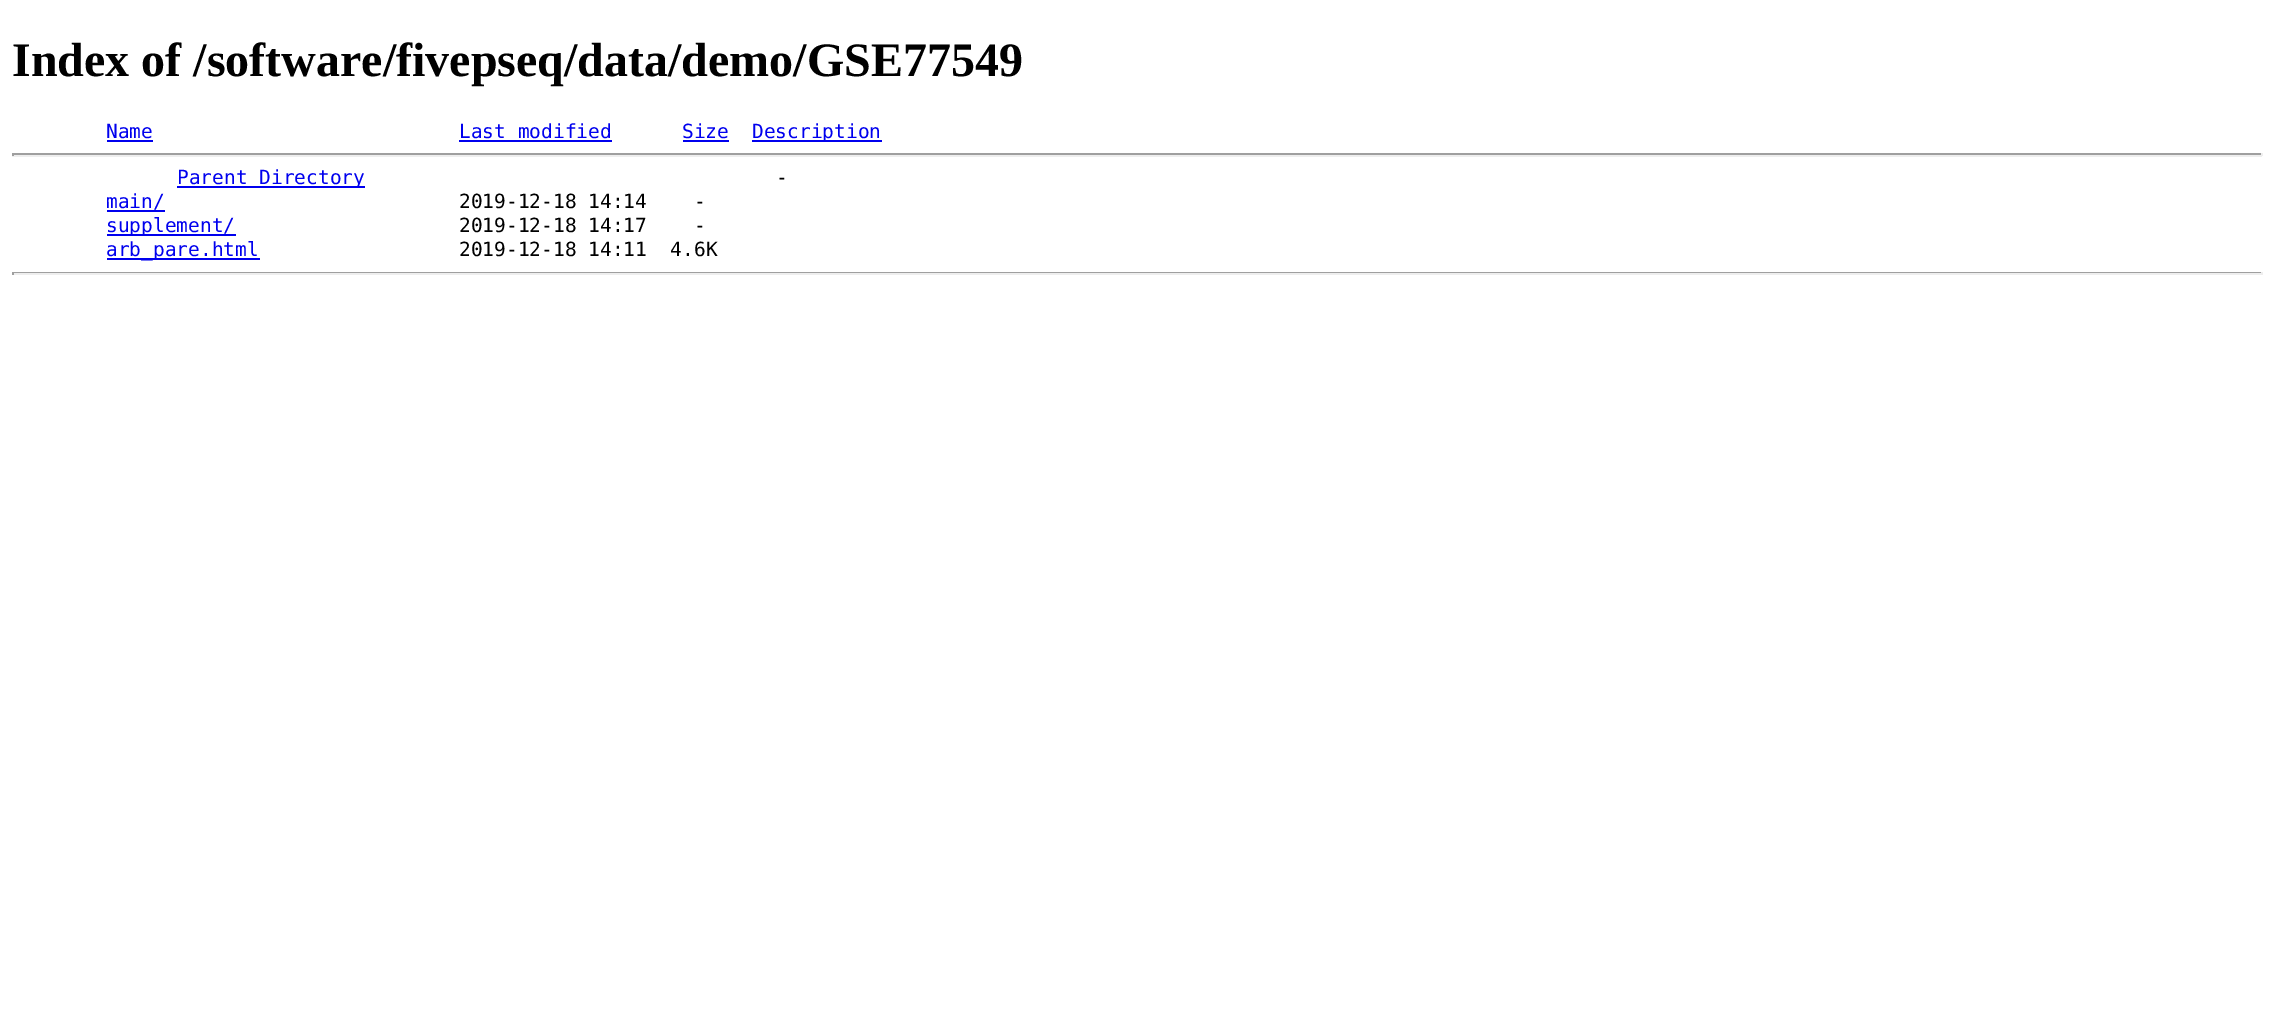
%!PS
<< /PageSize [2273 1009] >> setpagedevice
/rgb { dup -16 bitshift 255 div exch dup -8 bitshift 255 and 255 div exch 255 and 255 div setrgbcolor } def
/font { [ exch dup neg 0 0 3 -1 roll 0 0 ] selectfont } def
/text { moveto show } def
0 1009 translate 1 -1 scale
4 setmiterlimit
/s1 { /LiberationSerif-Bold 48 font 16#000000 rgb } def
/s2 { /DejaVuSansMono-Regular 19.5 font 16#0000EE rgb } def
/s3 { /DejaVuSansMono-Regular 19.5 font 16#000000 rgb } def
16#FFFFFF rgb
0 0 2273 1009 rectfill
s1
(Index of /software/fivepseq/data/demo/GSE77549) 12 76 text
s2
(Name) 106 138 text
107 140 46 2 rectfill
(Last modified) 459 138 text
459 140 153 2 rectfill
(Size) 682 138 text
683 140 46 2 rectfill
752 140 130 2 rectfill
(Description) 752 138 text
16#9F9F9F rgb
12 153 2250 2 rectfill
16#EEEEEE rgb
2261 153 2 3 rectfill
12 155 2250 2 rectfill
16#9F9F9F rgb
12 153 2 3 rectfill
16#0000EE rgb
177 186 188 2 rectfill
(Parent Directory) 177 184 text
s3
(-) 776 184 text
s2
(main/) 106 208 text
107 210 58 2 rectfill
s3
(2019-12-18 14:14    -) 459 208 text
16#0000EE rgb
107 234 129 2 rectfill
(supplement/) 106 232 text
s3
(2019-12-18 14:17    -) 459 232 text
16#0000EE rgb
107 258 153 2 rectfill
(arb_pare.html) 106 256 text
s3
(2019-12-18 14:11  4.6K) 459 256 text
16#9F9F9F rgb
12 272 2250 1 rectfill
16#EEEEEE rgb
2261 272 2 3 rectfill
12 273 2250 2 rectfill
16#9F9F9F rgb
12 272 2 3 rectfill
showpage
